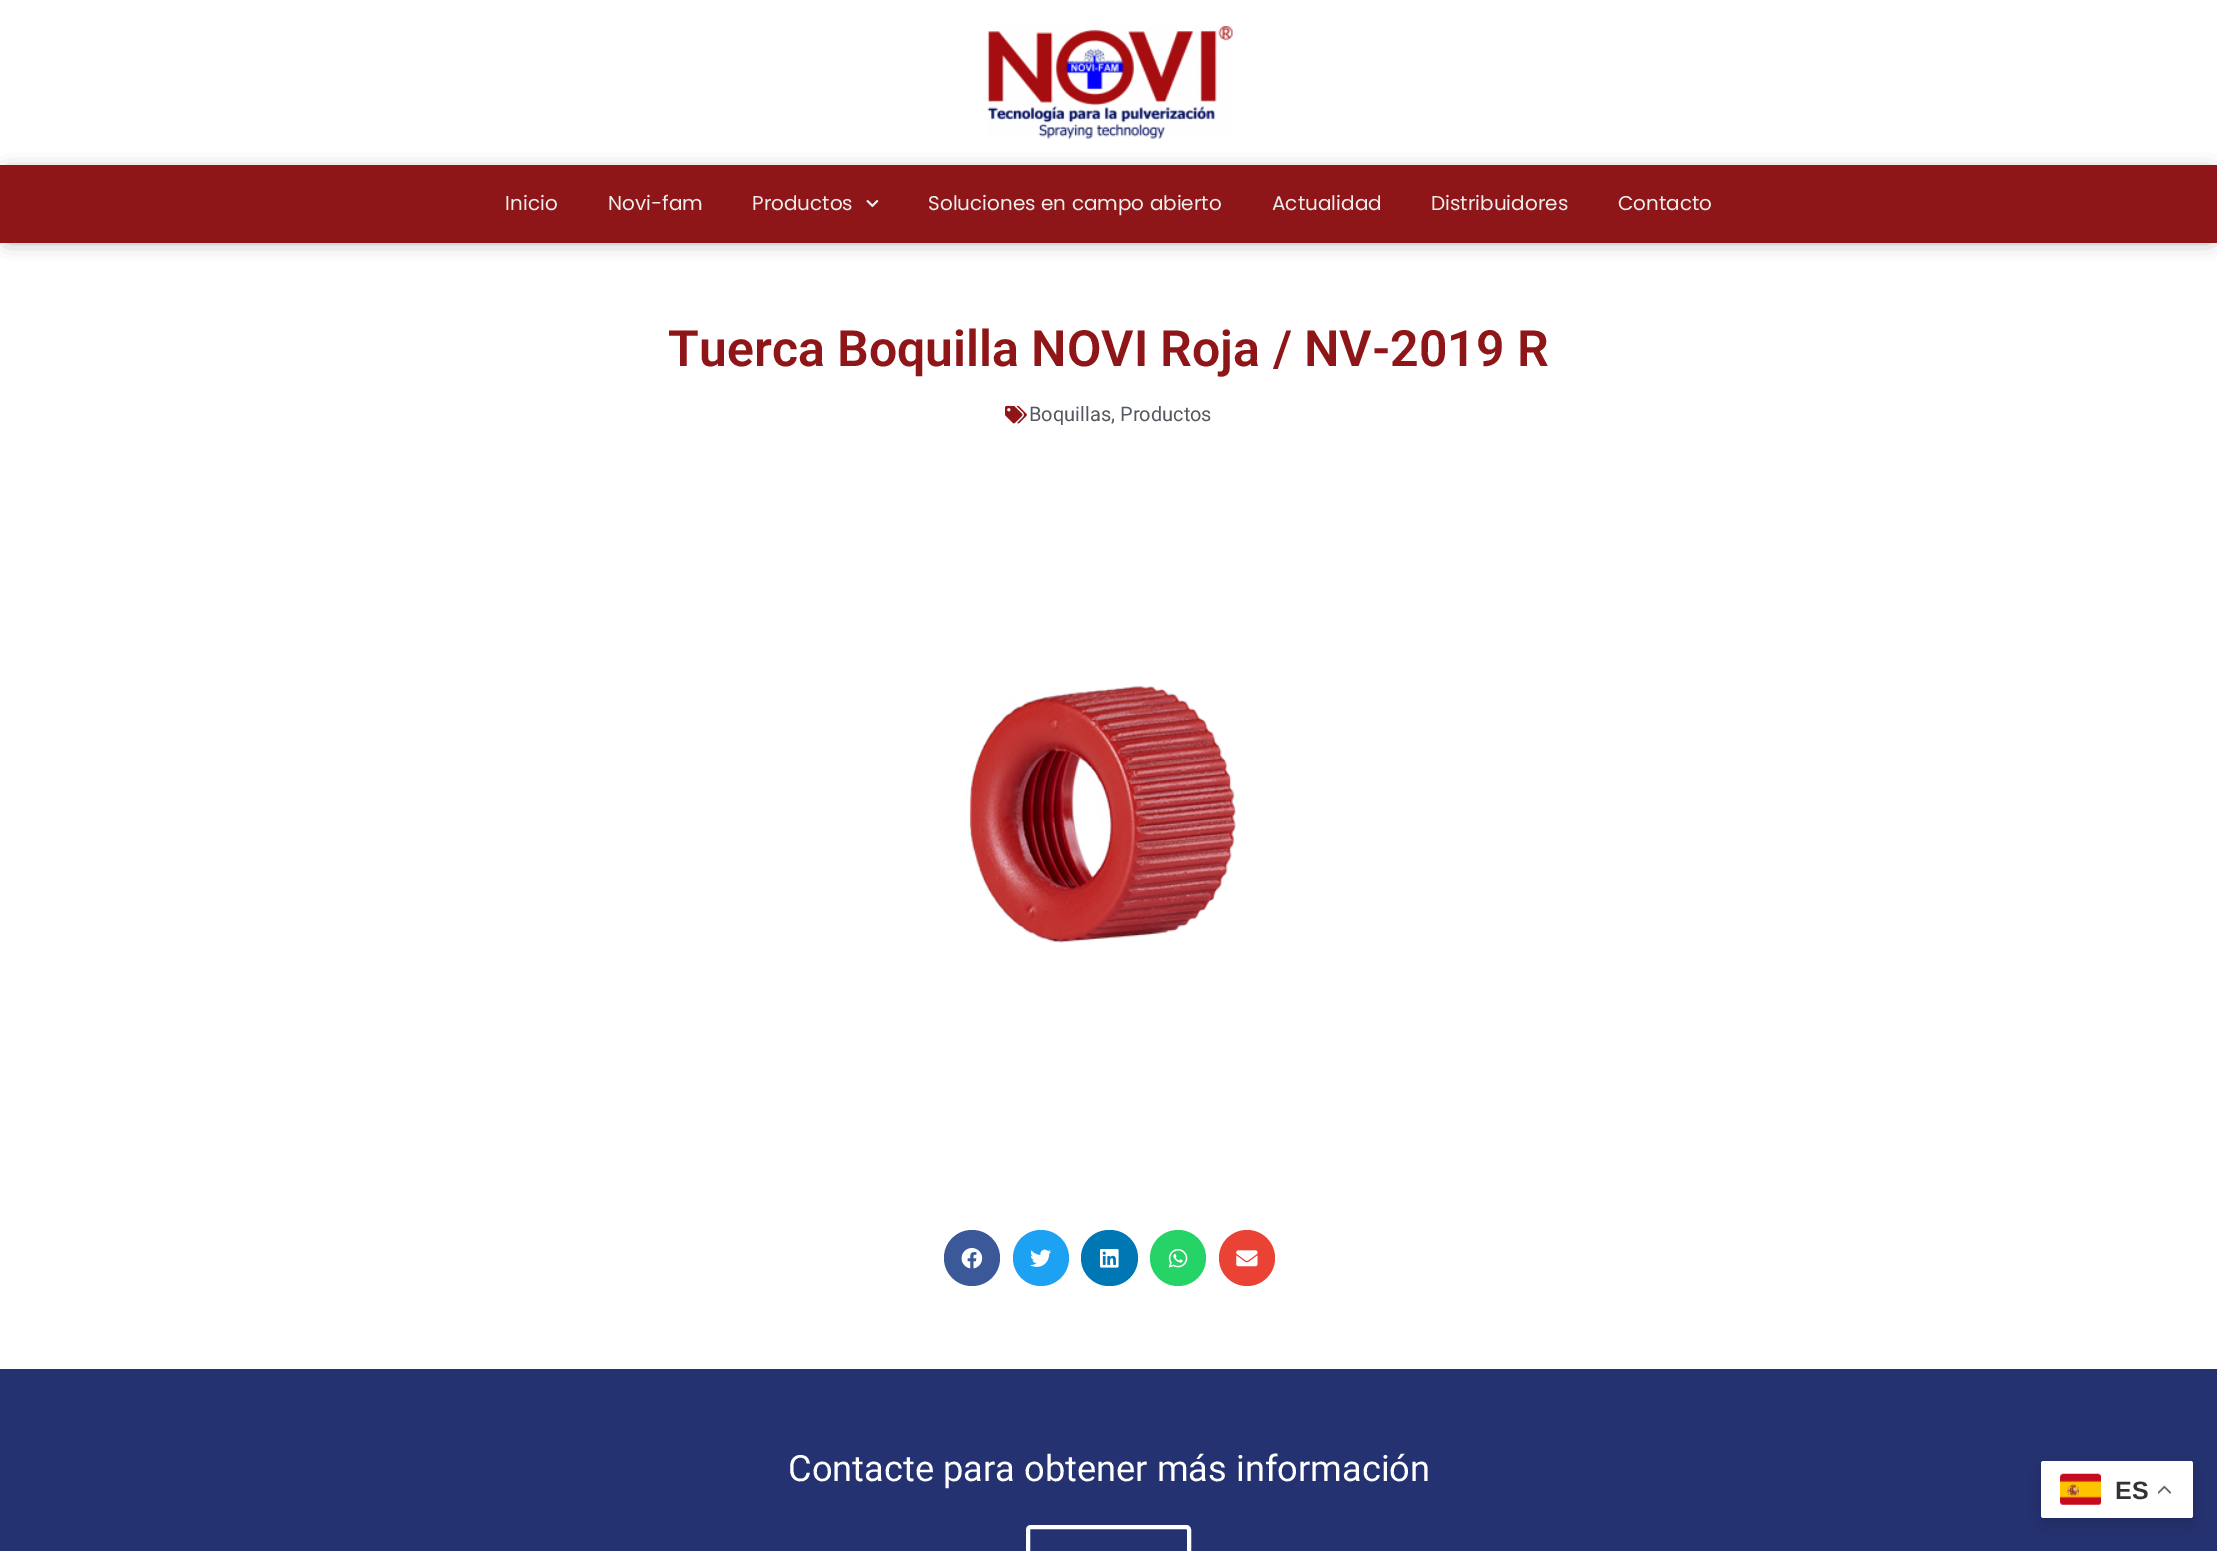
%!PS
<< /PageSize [2217 1551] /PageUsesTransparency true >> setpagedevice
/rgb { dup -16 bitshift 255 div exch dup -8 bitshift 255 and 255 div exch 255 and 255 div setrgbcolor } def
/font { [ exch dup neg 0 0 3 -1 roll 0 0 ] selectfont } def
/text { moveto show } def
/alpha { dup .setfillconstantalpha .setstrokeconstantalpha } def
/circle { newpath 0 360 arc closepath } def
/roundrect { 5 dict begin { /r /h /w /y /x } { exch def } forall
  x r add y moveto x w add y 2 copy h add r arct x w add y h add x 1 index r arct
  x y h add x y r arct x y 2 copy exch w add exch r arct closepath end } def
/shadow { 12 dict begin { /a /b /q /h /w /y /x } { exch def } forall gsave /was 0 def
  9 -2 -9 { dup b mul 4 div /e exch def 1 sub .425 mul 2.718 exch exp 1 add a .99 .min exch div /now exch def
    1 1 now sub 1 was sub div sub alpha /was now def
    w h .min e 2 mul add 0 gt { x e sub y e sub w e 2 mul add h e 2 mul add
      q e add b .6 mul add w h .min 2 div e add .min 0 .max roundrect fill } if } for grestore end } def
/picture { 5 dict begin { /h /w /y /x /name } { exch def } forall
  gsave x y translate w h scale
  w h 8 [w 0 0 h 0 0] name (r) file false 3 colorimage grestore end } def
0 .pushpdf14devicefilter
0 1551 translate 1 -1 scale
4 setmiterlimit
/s1 { /Poppins-Regular 20 font 16#EEEEEE rgb } def
/s2 { /Roboto-SemiBold 50 font 16#8E1618 rgb } def
/s3 { /Roboto-Regular 20 font 16#54595F rgb } def
/s4 { /Roboto-Regular 36.25 font 16#FFFFFF rgb } def
/s5 { /LiberationSans-Bold 25 font 16#333333 rgb } def
16#FFFFFF rgb
0 0 2217 1551 rectfill
(pic1.raw) 987 26 246 113 picture
16#000000 rgb
8 175 2202 63 0 10 0.5 shadow
16#8E1618 rgb
0 165 2217 78 rectfill
s1
(Inicio) 505 210 text
(Novi-fam) 608 210 text
(Productos) 752 210 text
(pic2.raw) 866 199 13 9 picture
(Soluciones en campo abierto) 928 210 text
(Actualidad) 1272 210 text
(Distribuidores) 1431 210 text
(Contacto) 1618 210 text
s2
(Tuerca Boquilla NOVI Roja / NV-2019 R) 668 366 text
(pic3.raw) 1005 405 22 19 picture
s3
(Boquillas, Productos) 1029 421 text
(pic4.raw) 969 686 268 257 picture
16#3B5998 rgb
972 1258 28 circle fill
(pic5.raw) 961 1248 22 21 picture
16#1DA1F2 rgb
1041 1258 28 circle fill
(pic6.raw) 1030 1249 22 18 picture
16#0077B5 rgb
1081 1230 57 56 28 roundrect fill
(pic7.raw) 1100 1249 19 19 picture
16#25D366 rgb
1178 1258 28 circle fill
(pic8.raw) 1168 1249 20 19 picture
16#EA4335 rgb
1247 1258 28 circle fill
(pic9.raw) 1236 1250 22 17 picture
16#253271 rgb
0 1369 2217 182 rectfill
s4
(Contacte para obtener más información) 788 1481 text
4 setlinewidth
1028 1527 161 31 3 roundrect stroke
16#000000 rgb
2041 1468 152 56 2.5 9.5 0.15 shadow
16#FFFFFF rgb
2041 1461 152 57 2.5 roundrect fill
(pic10.raw) 2060 1473 41 32 picture
s5
(ES) 2115 1499 text
(pic11.raw) 2158 1485 13 9 picture
.poppdf14devicefilter showpage
